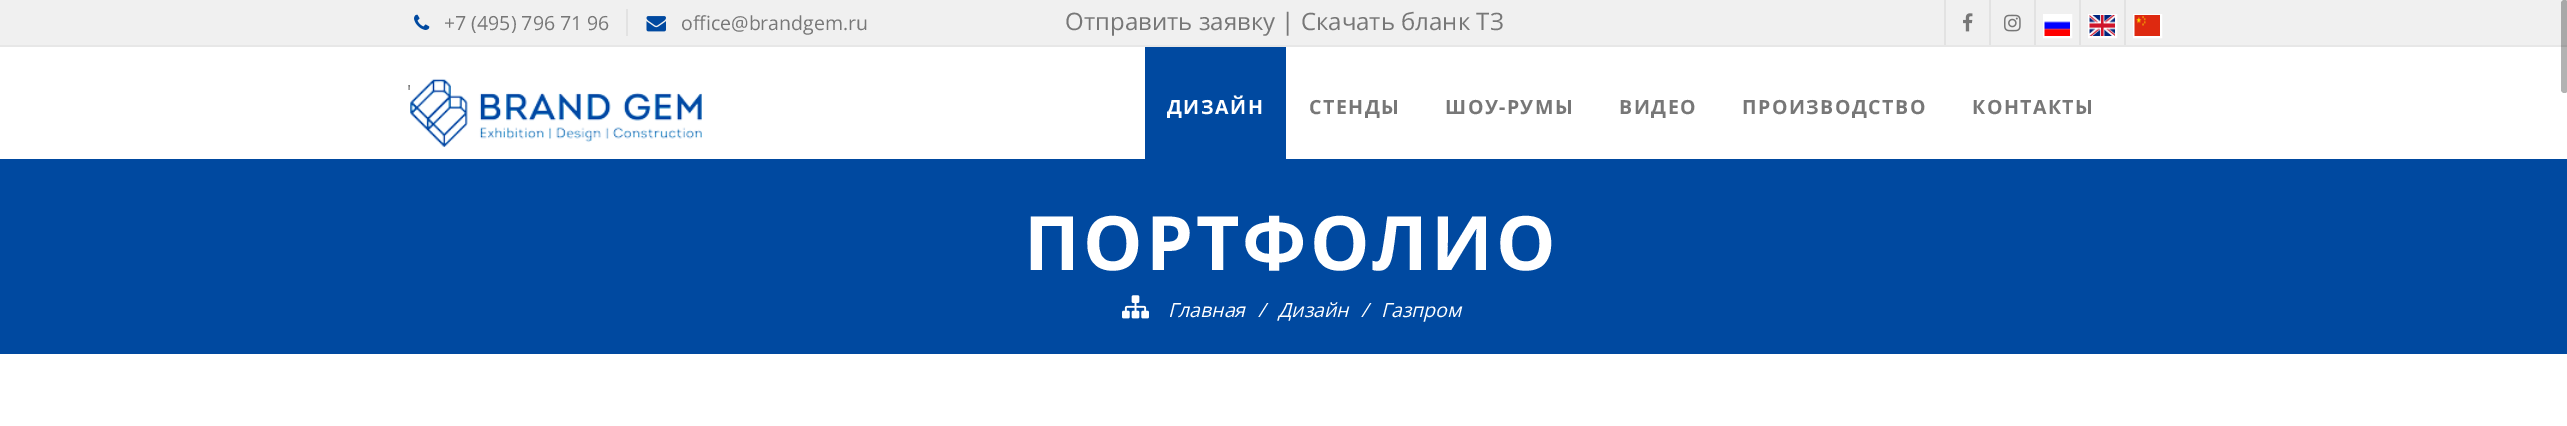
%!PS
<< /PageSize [2567 426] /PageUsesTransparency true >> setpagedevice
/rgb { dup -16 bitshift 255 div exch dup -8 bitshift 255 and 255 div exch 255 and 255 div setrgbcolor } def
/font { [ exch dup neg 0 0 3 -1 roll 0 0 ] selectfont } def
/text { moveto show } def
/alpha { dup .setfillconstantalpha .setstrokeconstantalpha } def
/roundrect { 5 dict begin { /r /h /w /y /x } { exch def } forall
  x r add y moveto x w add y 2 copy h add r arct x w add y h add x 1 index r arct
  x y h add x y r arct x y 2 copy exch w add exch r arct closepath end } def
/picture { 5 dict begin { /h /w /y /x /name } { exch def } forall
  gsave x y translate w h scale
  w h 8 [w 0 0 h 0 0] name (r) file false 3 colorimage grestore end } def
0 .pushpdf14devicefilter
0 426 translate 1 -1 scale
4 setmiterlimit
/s1 { /OpenSans-Regular 19.5 font 16#777777 rgb } def
/s2 { /OpenSans-Regular 24 font 16#777777 rgb } def
/s3 { /OpenSans-Italic 19.5 font 16#FFFFFF rgb } def
16#FFFFFF rgb
0 0 2567 426 rectfill
16#F0F0F0 rgb
0 0 2567 45 rectfill
16#E7E7E7 rgb
0 45 2567 2 rectfill
16#E2E2E2 rgb
626 9 2 27 rectfill
(pic1.raw) 414 14 16 16 picture
s1
(+7 \(495\) 796 71 96) 444 30 text
(pic2.raw) 646 16 20 16 picture
(office@brandgem.ru) 681 30 text
s2
(Отправить заявку | Скачать бланк ТЗ) 1065 30 text
16#E2E2E2 rgb
1944 0 2 45 rectfill
(pic3.raw) 1963 13 10 19 picture
1989 0 2 45 rectfill
(pic4.raw) 2004 14 17 18 picture
2034 0 2 45 rectfill
16#FFFFFF rgb
2 setlinewidth
2044 15 27 22 rectstroke
(pic5.raw) 2044 16 26 20 picture
16#E2E2E2 rgb
2079 0 2 45 rectfill
16#FFFFFF rgb
2089 15 27 22 rectstroke
(pic6.raw) 2089 15 26 21 picture
16#E2E2E2 rgb
2124 0 2 45 rectfill
16#FFFFFF rgb
2134 15 27 22 rectstroke
(pic7.raw) 2134 15 26 21 picture
0.3 alpha
16#000000 rgb
2561 0 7 93 3.5 roundrect fill
1 alpha
s1
(') 407 99 text
(pic8.raw) 410 78 292 70 picture
16#0049A0 rgb
1145 47 141 112 rectfill
/OpenSans-Bold 19.5 font
16#FFFFFF rgb
1167 114 moveto 1.5 0 (ДИЗАЙН) ashow
16#777777 rgb
1309 114 moveto 1.5 0 (СТЕНДЫ) ashow
1445 114 moveto 1.5 0 (ШОУ-РУМЫ) ashow
1619 114 moveto 1.5 0 (ВИДЕО) ashow
1742 114 moveto 1.5 0 (ПРОИЗВОДСТВО) ashow
1972 114 moveto 1.5 0 (КОНТАКТЫ) ashow
16#0049A0 rgb
0 159 2567 195 rectfill
/OpenSans-Bold 75 font
16#FFFFFF rgb
1024 270 moveto 3 0 (ПОРТФОЛИО) ashow
(pic9.raw) 1122 295 27 24 picture
s3
(Главная) 1168 317 text
(/) 1258 317 text
(Дизайн) 1278 317 text
(/) 1361 317 text
(Газпром) 1381 317 text
.poppdf14devicefilter showpage
